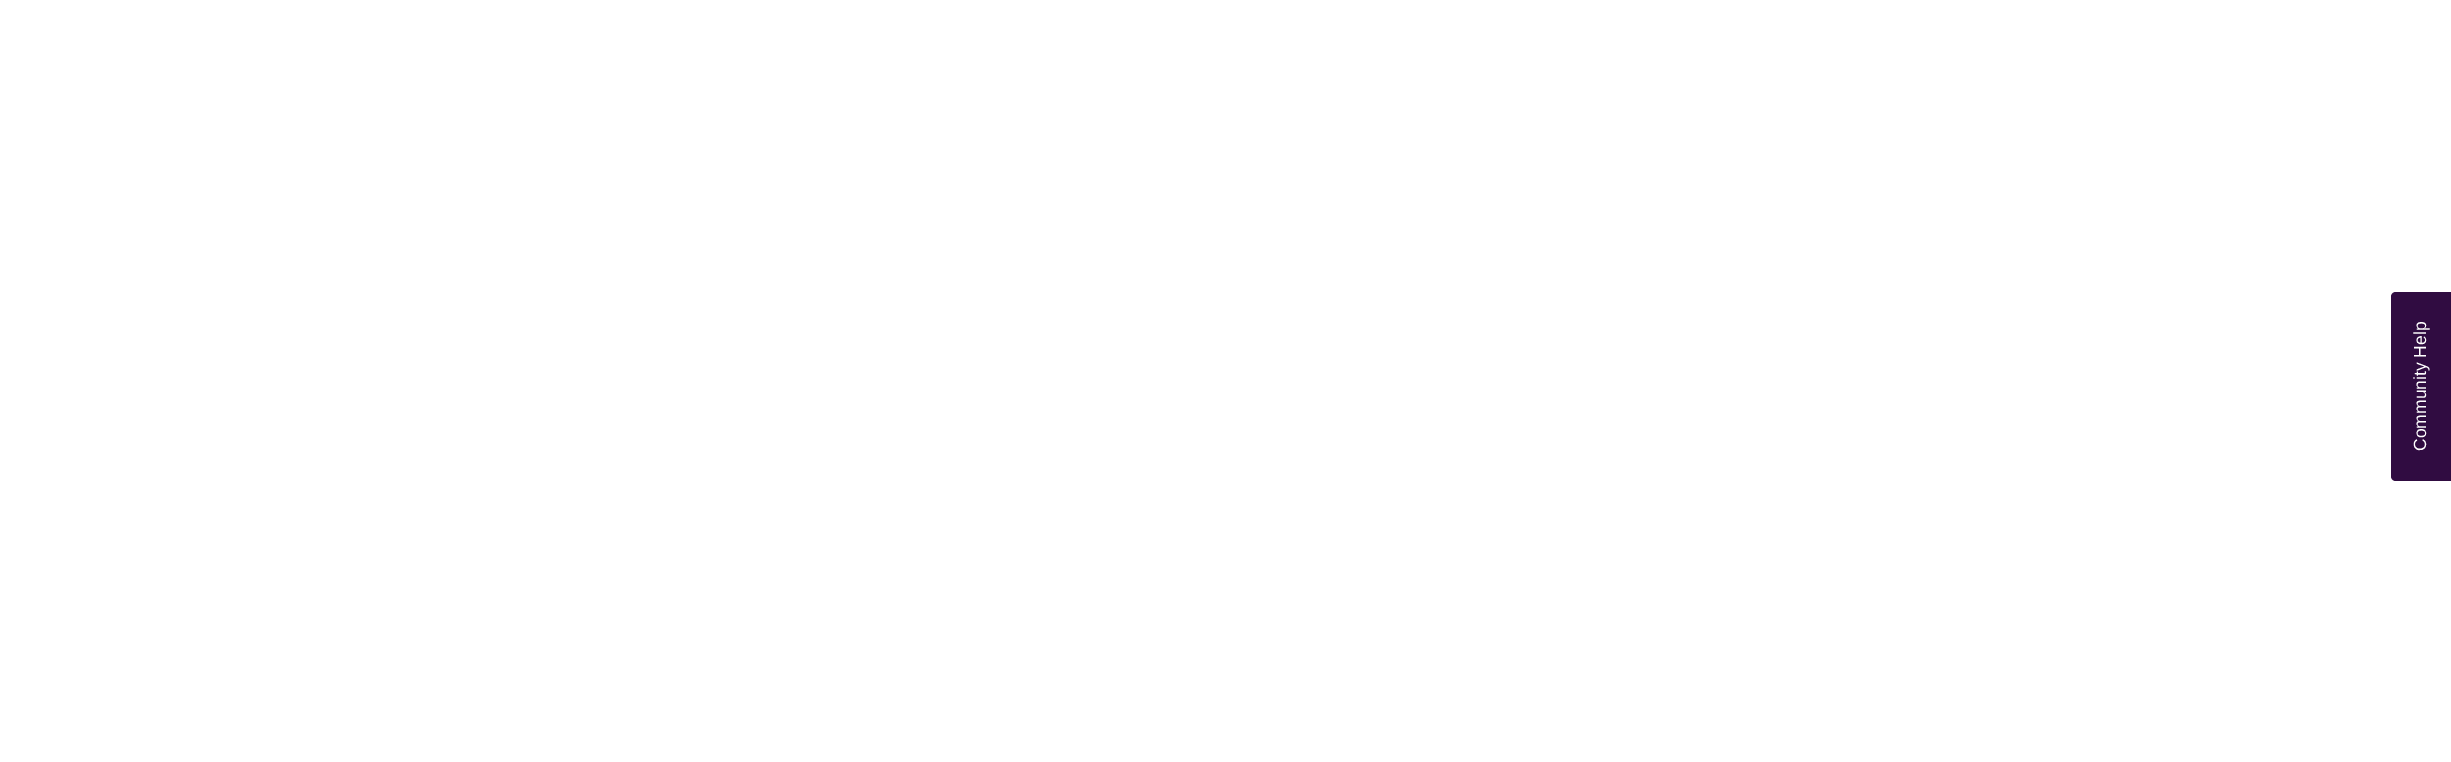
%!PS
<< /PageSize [2451 762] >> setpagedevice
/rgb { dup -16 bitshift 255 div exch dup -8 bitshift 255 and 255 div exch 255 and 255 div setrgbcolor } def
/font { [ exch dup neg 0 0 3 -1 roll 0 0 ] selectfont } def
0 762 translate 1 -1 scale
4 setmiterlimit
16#FFFFFF rgb
0 0 2451 762 rectfill
16#300C41 rgb
2391 476 moveto 2391 297 lineto 2391 294 2393 292 2396 292 curveto 2451 292 lineto 2451 481 lineto 2396 481 lineto 2393 481 2391 479 2391 476 curveto closepath fill
/LiberationSans-Regular 17.5 font
16#FFFFFF rgb
gsave 2426 451 translate -90 rotate 0 0 moveto (Community Help) show grestore
showpage
